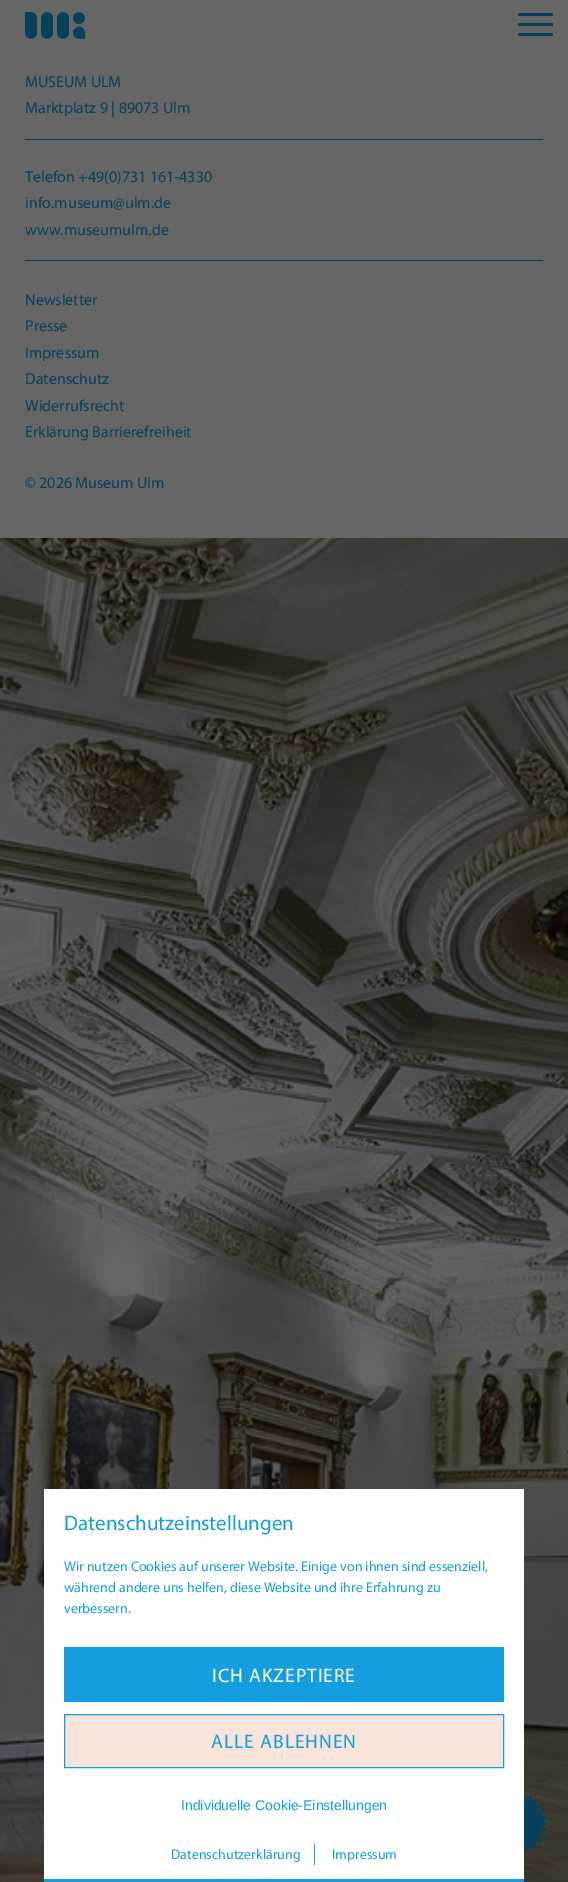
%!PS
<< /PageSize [568 1882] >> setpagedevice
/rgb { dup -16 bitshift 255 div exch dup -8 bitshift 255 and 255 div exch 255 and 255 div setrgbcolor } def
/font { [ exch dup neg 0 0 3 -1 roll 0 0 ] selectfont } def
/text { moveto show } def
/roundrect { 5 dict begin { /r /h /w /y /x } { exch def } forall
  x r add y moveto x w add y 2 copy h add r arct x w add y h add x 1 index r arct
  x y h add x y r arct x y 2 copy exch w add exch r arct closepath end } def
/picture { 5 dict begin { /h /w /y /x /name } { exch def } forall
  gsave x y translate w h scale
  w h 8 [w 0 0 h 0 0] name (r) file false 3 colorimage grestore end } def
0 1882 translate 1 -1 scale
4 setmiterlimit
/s1 { /Myriad-Regular 16 font 16#083F5A rgb } def
/s2 { /Myriad-Regular 21 font 16#149EE0 rgb } def
/s3 { /Myriad-Regular 14 font 16#149EE0 rgb } def
/s4 { /LiberationSans-Regular 14 font 16#149EE0 rgb } def
16#FFFFFF rgb
0 0 568 1882 rectfill
16#666666 rgb
0 0 568 538 rectfill
(pic1.raw) 25 12 60 27 picture
16#083F5A rgb
518 23 35 3 1 roundrect fill
518 13 35 3 1 roundrect fill
518 33 35 3 1 roundrect fill
s1
(MUSEUM ULM) 25 87 text
(Marktplatz 9 | 89073 Ulm) 25 113 text
25 139 518 1 rectfill
(Telefon +49\(0\)731 161-4330) 25 182 text
(info.museum@ulm.de) 25 208 text
(www.museumulm.de) 25 235 text
25 260 518 1 rectfill
(Newsletter) 25 305 text
(Presse) 25 331 text
(Impressum) 25 358 text
(Datenschutz) 25 384 text
(Widerrufsrecht) 25 411 text
(Erklärung Barrierefreiheit) 25 437 text
(© 2026 Museum Ulm) 25 488 text
(pic2.raw) 0 538 568 1344 picture
16#FFFFFF rgb
44 1489 480 390 rectfill
16#149EE0 rgb
44 1879 480 3 rectfill
s2
(Datenschutzeinstellungen) 64 1530 text
s3
(Wir nutzen Cookies auf unserer Website. Einige von ihnen sind essenziell,) 64 1571 text
(während andere uns helfen, diese Website und ihre Erfahrung zu) 64 1592 text
(verbessern.) 64 1613 text
64 1647 440 55 rectfill
/Myriad-Regular 19.5 font
16#FFFFFF rgb
212 1682 moveto 1 0 (ICH AKZEPTIERE) ashow
16#F8E4D9 rgb
64.5 1714.5 moveto 503.5 1714.5 lineto 503.5 1767.5 lineto 64.5 1767.5 lineto closepath gsave fill grestore
16#149EE0 rgb
stroke
211 1748 moveto 1 0 (ALLE ABLEHNEN) ashow
s4
(Individuelle Cookie-Einstellungen) 181 1810 text
314 1844 1 21 rectfill
s3
(Datenschutzerklärung) 171 1859 text
(Impressum) 332 1859 text
(pic3.raw) 524 1791 25 65 picture
showpage
